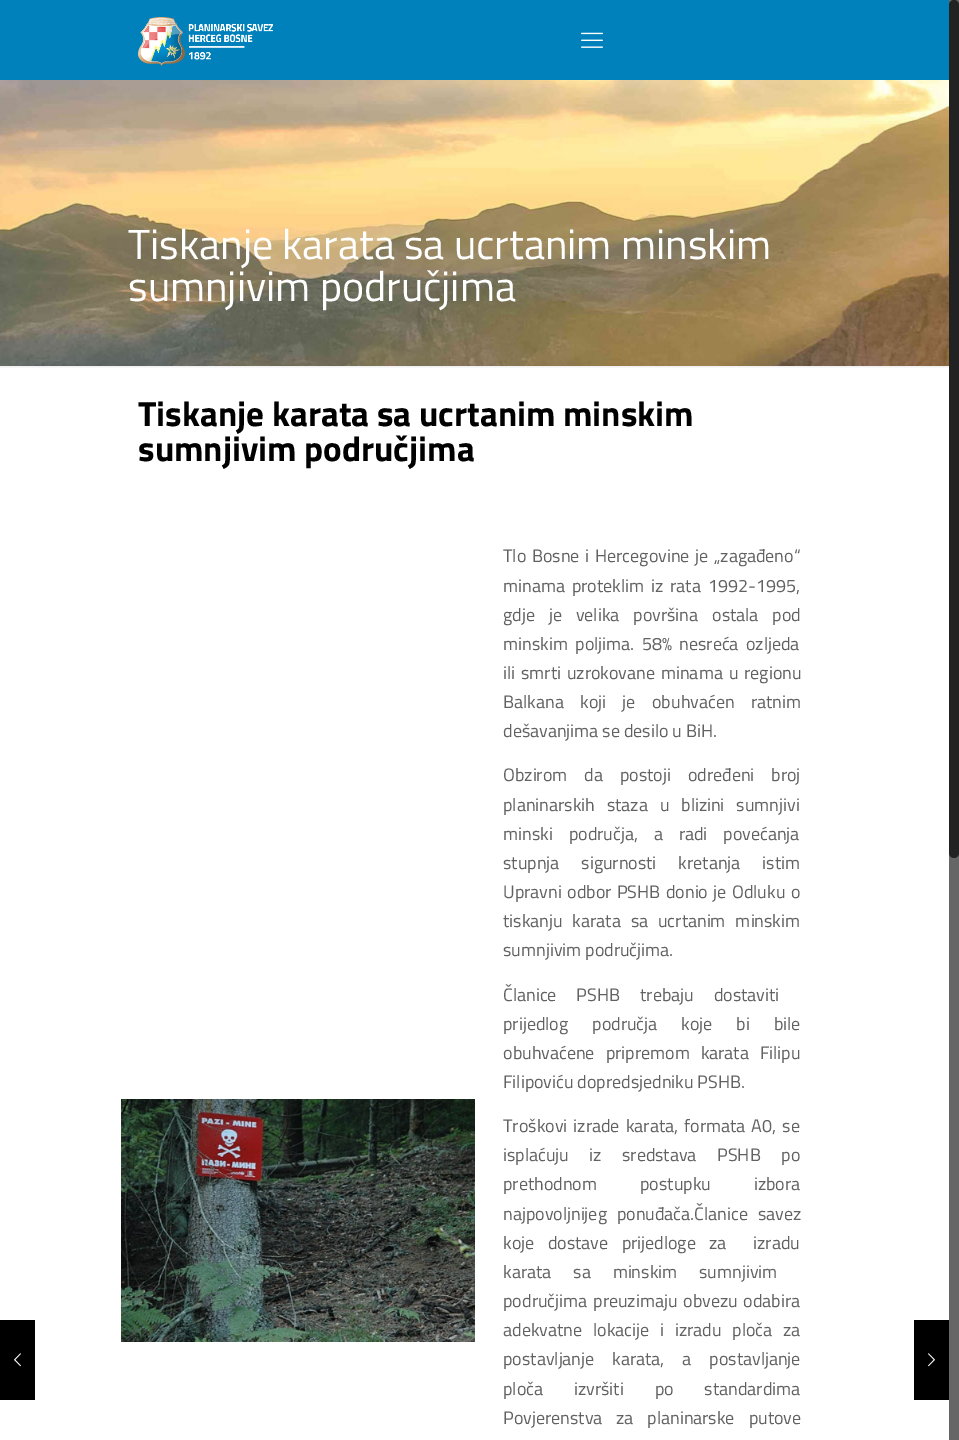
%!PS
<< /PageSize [959 1440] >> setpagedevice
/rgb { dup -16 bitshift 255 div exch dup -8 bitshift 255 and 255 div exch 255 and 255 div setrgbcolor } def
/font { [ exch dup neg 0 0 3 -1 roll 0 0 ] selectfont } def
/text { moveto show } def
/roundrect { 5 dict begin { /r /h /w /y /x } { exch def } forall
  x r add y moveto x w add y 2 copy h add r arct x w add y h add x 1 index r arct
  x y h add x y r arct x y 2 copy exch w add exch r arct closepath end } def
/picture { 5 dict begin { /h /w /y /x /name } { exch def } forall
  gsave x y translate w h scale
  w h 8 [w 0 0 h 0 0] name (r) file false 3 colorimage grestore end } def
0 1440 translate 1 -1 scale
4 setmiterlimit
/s1 { /TitilliumWeb-Regular 42 font 16#FFFFFF rgb } def
/s2 { /TitilliumWeb-Bold 35 font 16#000000 rgb } def
/s3 { /TitilliumWeb-Regular 18 font 16#626262 rgb } def
16#FFFFFF rgb
0 0 959 1440 rectfill
16#000000 rgb
0 1320 35 80 rectfill
(pic1.raw) 14 1353 7 14 picture
(pic2.raw) 0 80 949 286 picture
16#0081BB rgb
0 0 949 80 rectfill
(pic3.raw) 138 17 135 49 picture
(pic4.raw) 581 32 22 16 picture
s1
(Tiskanje karata sa ucrtanim minskim) 128 259 text
(sumnjivim područjima) 128 301 text
(pic5.raw) 0 366 949 2 picture
s2
(Tiskanje karata sa ucrtanim minskim) 138 426 text
(sumnjivim područjima) 138 461 text
(pic6.raw) 121 1099 354 243 picture
/TitilliumWeb-Regular 18 font
16#626262 rgb
503 562 moveto 1.75 0 32 (Tlo Bosne i Hercegovine je „zagađeno“) widthshow
503 592 moveto 3 0 32 (minama proteklim iz rata 1992-1995,) widthshow
503 621 moveto 10 0 32 (gdje je velika površina ostala pod) widthshow
503 650 moveto 3.5 0 32 (minskim poljima. 58% nesreća ozljeda) widthshow
503 679 moveto 2 0 32 (ili smrti uzrokovane minama u regionu) widthshow
503 708 moveto 12.5 0 32 (Balkana koji je obuhvaćen ratnim) widthshow
(dešavanjima se desilo u BiH.) 503 737 text
503 781 moveto 13 0 32 (Obzirom da postoji određeni broj) widthshow
503 811 moveto 8 0 32 (planinarskih staza u blizini sumnjivi) widthshow
503 840 moveto 12 0 32 (minski područja, a radi povećanja) widthshow
503 869 moveto 18 0 32 (stupnja sigurnosti kretanja istim) widthshow
503 898 moveto 1.5 0 32 (Upravni odbor PSHB donio je Odluku o) widthshow
503 927 moveto 6 0 32 (tiskanju karata sa ucrtanim minskim) widthshow
(sumnjivim područjima.) 503 956 text
503 1001 moveto 16 0 32 (Članice PSHB trebaju dostaviti) widthshow
503 1030 moveto 20 0 32 (prijedlog područja koje bi bile) widthshow
503 1059 moveto 7 0 32 (obuhvaćene pripremom karata Filipu) widthshow
(Filipoviću dopredsjedniku PSHB.) 503 1088 text
503 1132 moveto 2.25 0 32 (Troškovi izrade karata, formata A0, se) widthshow
503 1161 moveto 16.5 0 32 (isplaćuju iz sredstava PSHB po) widthshow
503 1190 moveto 39 0 32 (prethodnom postupku izbora) widthshow
503 1220 moveto 6 0 32 (najpovoljnijeg ponuđača.Članice savez) widthshow
503 1249 moveto 9.5 0 32 (koje dostave prijedloge za  izradu) widthshow
503 1278 moveto 18 0 32 (karata sa minskim sumnjivim) widthshow
503 1307 moveto 2 0 32 (područjima preuzimaju obvezu odabira) widthshow
503 1336 moveto 7 0 32 (adekvatne lokacije i izradu ploča za) widthshow
503 1365 moveto 14 0 32 (postavljanje karata, a postavljanje) widthshow
503 1395 moveto 27 0 32 (ploča izvršiti po standardima) widthshow
503 1424 moveto 10 0 32 (Povjerenstva za planinarske putove) widthshow
16#000000 rgb
914 1320 35 80 rectfill
(pic7.raw) 928 1353 7 14 picture
16#666666 rgb
949 0 10 1440 rectfill
16#222222 rgb
949 0 10 858 5 roundrect fill
showpage
